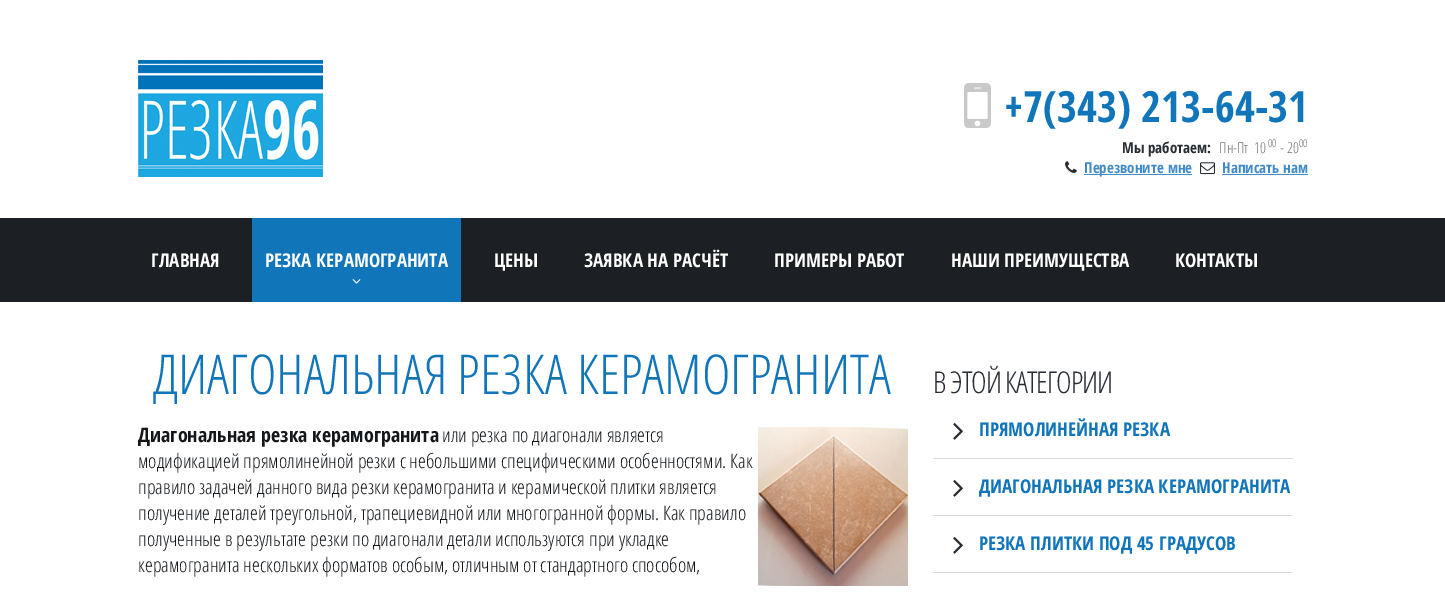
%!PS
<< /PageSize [1445 593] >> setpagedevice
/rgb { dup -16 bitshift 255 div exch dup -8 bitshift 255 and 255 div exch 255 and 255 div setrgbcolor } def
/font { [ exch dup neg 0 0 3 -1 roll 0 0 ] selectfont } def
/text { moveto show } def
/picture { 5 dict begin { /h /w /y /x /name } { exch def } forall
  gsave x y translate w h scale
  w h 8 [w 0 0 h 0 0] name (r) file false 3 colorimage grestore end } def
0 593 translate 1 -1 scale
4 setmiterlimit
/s1 { /OpenSansCondensed-Bold 43 font 16#1175BA rgb } def
/s2 { /OpenSansCondensed-Bold 15 font 16#272D33 rgb } def
/s3 { /OpenSansCondensed-Light 15 font 16#777777 rgb } def
/s4 { /OpenSansCondensed-Light 11 font 16#777777 rgb } def
/s5 { /OpenSansCondensed-Bold 15 font 16#428BCA rgb } def
/s6 { /OpenSansCondensed-Bold 19 font 16#FFFFFF rgb } def
/s7 { /OpenSansCondensed-Light 55 font 16#1175BA rgb } def
/s8 { /OpenSansCondensed-Bold 20 font 16#15181B rgb } def
/s9 { /OpenSansCondensed-Light 20 font 16#15181B rgb } def
/s10 { /OpenSansCondensed-Bold 19 font 16#1175BA rgb } def
16#1C2025 rgb
0 0 1445 593 rectfill
16#FFFFFF rgb
0 0 1445 218 rectfill
(pic1.raw) 138 60 185 117 picture
(pic2.raw) 964 83 27 45 picture
s1
(+7\(343\) 213-64-31) 1004 122 text
s2
(Мы работаем:) 1122 153 text
s3
(Пн-Пт  10) 1219 153 text
s4
(00) 1268 147 text
s3
(- 20) 1280 153 text
s4
(00) 1299 147 text
(pic3.raw) 1065 161 12 12 picture
16#428BCA rgb
1084 174 108 1 rectfill
s5
(Перезвоните мне) 1084 173 text
(pic4.raw) 1200 162 15 13 picture
(Написать нам) 1222 173 text
1222 174 86 1 rectfill
s6
(ГЛАВНАЯ) 151 267 text
16#1175BA rgb
252 218 209 84 rectfill
s6
(РЕЗКА КЕРАМОГРАНИТА) 265 267 text
(pic5.raw) 352 279 9 5 picture
(ЦЕНЫ) 494 267 text
(ЗАЯВКА НА РАСЧЁТ) 584 267 text
(ПРИМЕРЫ РАБОТ) 774 267 text
(НАШИ ПРЕИМУЩЕСТВА) 951 267 text
(КОНТАКТЫ) 1175 267 text
0 302 1445 291 rectfill
s7
(ДИАГОНАЛЬНАЯ РЕЗКА КЕРАМОГРАНИТА) 153 394 text
s8
(Диагональная резка керамогранита) 138 442 text
s9
(или резка по диагонали является) 442 442 text
(pic6.raw) 758 427 150 159 picture
(модификацией прямолинейной резки с небольшими специфическими особенностями. Как) 138 468 text
(правило задачей данного вида резки керамогранита и керамической плитки является) 138 494 text
(получение деталей треугольной, трапециевидной или многогранной формы. Как правило) 138 520 text
(полученные в результате резки по диагонали детали используются при укладке) 138 546 text
(керамогранита нескольких форматов особым, отличным от стандартного способом,) 138 572 text
/OpenSansCondensed-Light 30 font
16#272D33 rgb
933 393 moveto -1 0 (В ЭТОЙ КАТЕГОРИИ) ashow
16#DADBDC rgb
933 458 360 1 rectfill
(pic7.raw) 953 423 10 17 picture
s10
(ПРЯМОЛИНЕЙНАЯ РЕЗКА) 979 436 text
16#DADBDC rgb
933 515 360 1 rectfill
(pic7.raw) 953 480 10 17 picture
s10
(ДИАГОНАЛЬНАЯ РЕЗКА КЕРАМОГРАНИТА) 979 493 text
16#DADBDC rgb
933 572 360 1 rectfill
(pic7.raw) 953 537 10 17 picture
s10
(РЕЗКА ПЛИТКИ ПОД 45 ГРАДУСОВ) 979 550 text
showpage
